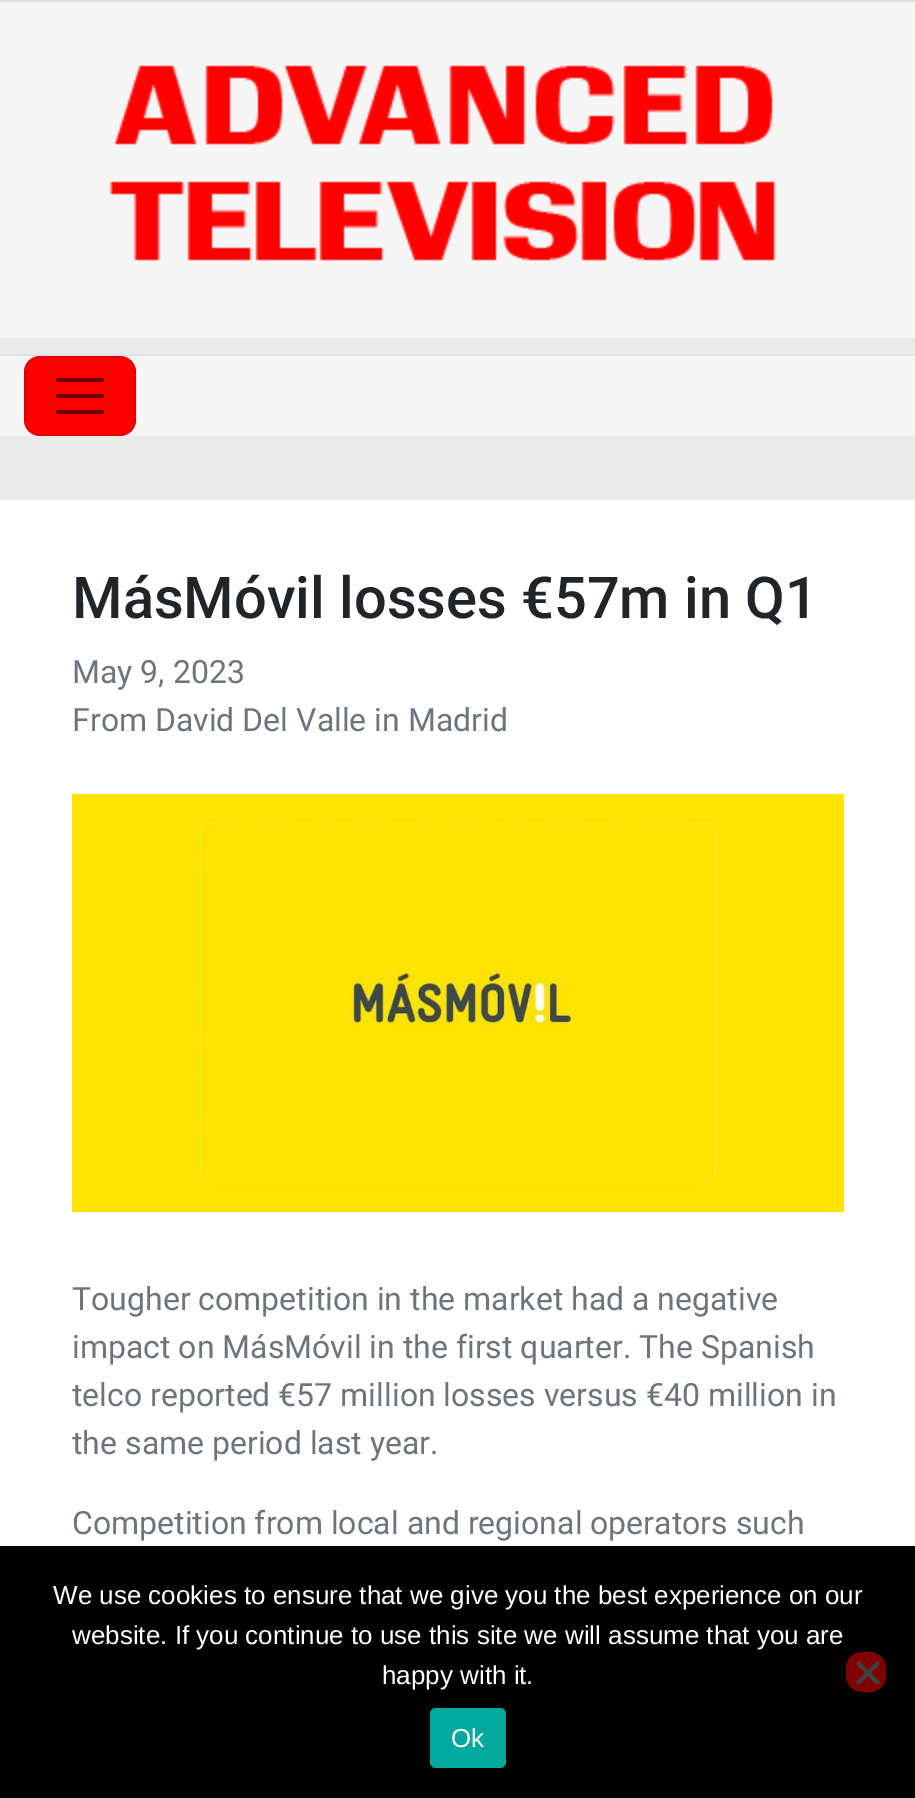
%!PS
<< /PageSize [915 1798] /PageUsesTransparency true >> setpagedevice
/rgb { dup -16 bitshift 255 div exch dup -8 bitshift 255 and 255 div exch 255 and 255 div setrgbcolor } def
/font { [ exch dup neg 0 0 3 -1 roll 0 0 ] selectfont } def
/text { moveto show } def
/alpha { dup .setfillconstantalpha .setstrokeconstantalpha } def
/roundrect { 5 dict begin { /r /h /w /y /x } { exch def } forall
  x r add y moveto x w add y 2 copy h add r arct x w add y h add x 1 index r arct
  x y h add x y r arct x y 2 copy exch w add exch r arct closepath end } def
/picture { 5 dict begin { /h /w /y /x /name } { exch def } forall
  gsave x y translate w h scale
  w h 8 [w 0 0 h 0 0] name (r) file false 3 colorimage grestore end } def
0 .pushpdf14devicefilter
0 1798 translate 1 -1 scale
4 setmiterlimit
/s1 { /Roboto-Medium 57.75 font 16#212529 rgb } def
/s2 { /Roboto-Regular 32 font 16#6C757D rgb } def
/s3 { /LiberationSans-Regular 26 font 16#FFFFFF rgb } def
16#EAEAEA rgb
0 0 915 1798 rectfill
16#F5F5F5 rgb
0 2 915 336 rectfill
16#DEE2E6 rgb
0 0 915 2 rectfill
(pic1.raw) 109 65 668 196 picture
16#F5F5F5 rgb
0 356 915 80 rectfill
16#DEE2E6 rgb
0 354 915 2 rectfill
16#FF0000 rgb
24 356 112 80 16 roundrect fill
0.1 alpha
16#000000 rgb
2 setlinewidth
25 357 110 78 15 roundrect stroke
1 alpha
16#730000 rgb
4 setlinewidth
1 setlinecap
58 380 moveto 102 380 lineto 58 396 moveto 102 396 lineto 58 412 moveto 102 412 lineto stroke
16#FFFFFF rgb
0 500 915 1046 rectfill
s1
(MásMóvil losses €57m in Q1) 72 618 text
s2
(May 9, 2023) 72 683 text
(From David Del Valle in Madrid) 72 731 text
(pic2.raw) 72 794 772 418 picture
(Tougher competition in the market had a negative) 72 1310 text
(impact on MásMóvil in the first quarter. The Spanish) 72 1358 text
(telco reported €57 million losses versus €40 million in) 72 1406 text
(the same period last year.) 72 1454 text
(Competition from local and regional operators such) 72 1534 text
16#000000 rgb
0 1546 915 252 rectfill
s3
(We use cookies to ensure that we give you the best experience on our) 53 1604 text
(website. If you continue to use this site we will assume that you are) 72 1644 text
(happy with it.) 382 1684 text
16#800000 rgb
846 1652 40 40 16 roundrect fill
16#404040 rgb
877 1661 moveto 880 1664 lineto 859 1685 lineto 856 1682 lineto closepath fill
856 1664 moveto 859 1661 lineto 880 1682 lineto 877 1685 lineto closepath fill
16#00A99D rgb
430 1708 76 60 6 roundrect fill
s3
(Ok) 451 1747 text
.poppdf14devicefilter showpage
